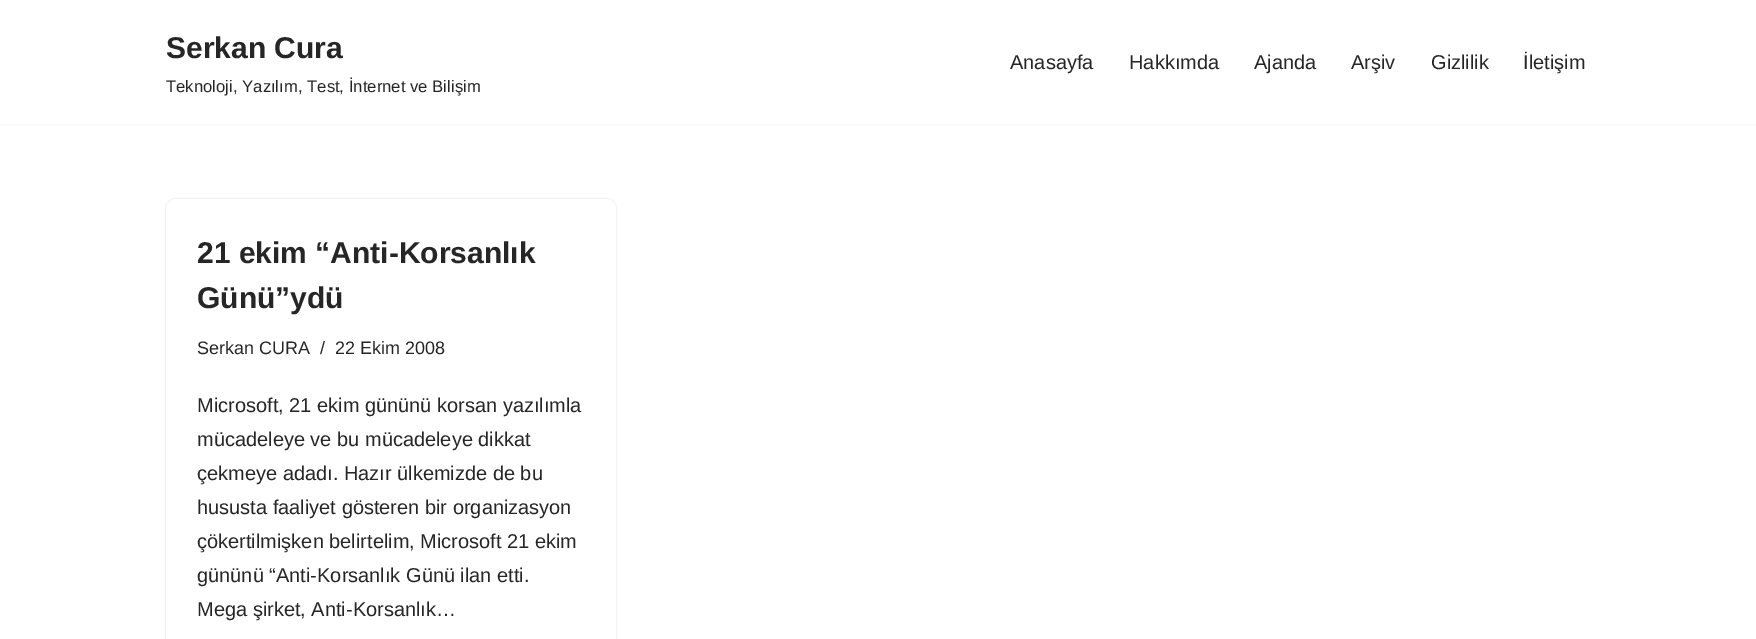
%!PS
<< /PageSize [1756 639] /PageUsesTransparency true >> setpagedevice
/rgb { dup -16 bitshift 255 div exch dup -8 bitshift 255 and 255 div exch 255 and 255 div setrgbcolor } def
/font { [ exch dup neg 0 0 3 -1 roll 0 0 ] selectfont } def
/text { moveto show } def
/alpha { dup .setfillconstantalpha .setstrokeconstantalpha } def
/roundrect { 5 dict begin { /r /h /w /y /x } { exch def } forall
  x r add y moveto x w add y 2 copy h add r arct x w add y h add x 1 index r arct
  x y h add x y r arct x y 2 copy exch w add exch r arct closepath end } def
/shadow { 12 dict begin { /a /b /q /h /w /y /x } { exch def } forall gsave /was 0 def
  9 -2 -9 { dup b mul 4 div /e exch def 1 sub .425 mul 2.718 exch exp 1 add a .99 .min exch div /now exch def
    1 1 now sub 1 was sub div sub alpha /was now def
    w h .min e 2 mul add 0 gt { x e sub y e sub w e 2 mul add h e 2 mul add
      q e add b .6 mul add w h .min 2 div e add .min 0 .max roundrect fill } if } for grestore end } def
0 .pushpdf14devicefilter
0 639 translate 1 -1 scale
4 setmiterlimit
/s1 { /LiberationSans-Bold 30 font 16#272626 rgb } def
/s2 { /LiberationSans-Regular 16.7 font 16#272626 rgb } def
/s3 { /LiberationSans-Regular 20 font 16#272626 rgb } def
/s4 { /LiberationSans-Regular 18 font 16#272626 rgb } def
16#FFFFFF rgb
0 0 1756 639 rectfill
16#000000 rgb
0 -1 1756 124 0 2 0.1 shadow
16#FFFFFF rgb
0 0 1756 124 rectfill
s1
(Serkan Cura) 166 58 text
s2
(Teknoloji, Yazılım, Test, İnternet ve Bilişim) 166 92 text
s3
(Anasayfa) 1010 69 text
(Hakkımda) 1129 69 text
(Ajanda) 1254 69 text
(Arşiv) 1351 69 text
(Gizlilik) 1431 69 text
(İletişim) 1523 69 text
16#000000 rgb
166 199 450 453 10 1 0.15 shadow
16#FFFFFF rgb
166 199 450 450 10 roundrect fill
s1
(21 ekim “Anti-Korsanlık) 197 263 text
(Günü”ydü) 197 308 text
s4
(Serkan CURA) 197 354 text
(/) 320 354 text
(22 Ekim 2008) 335 354 text
s3
(Microsoft, 21 ekim gününü korsan yazılımla) 197 412 text
(mücadeleye ve bu mücadeleye dikkat) 197 446 text
(çekmeye adadı. Hazır ülkemizde de bu) 197 480 text
(hususta faaliyet gösteren bir organizasyon) 197 514 text
(çökertilmişken belirtelim, Microsoft 21 ekim) 197 548 text
(gününü “Anti-Korsanlık Günü ilan etti.) 197 582 text
(Mega şirket, Anti-Korsanlık…) 197 616 text
.poppdf14devicefilter showpage
